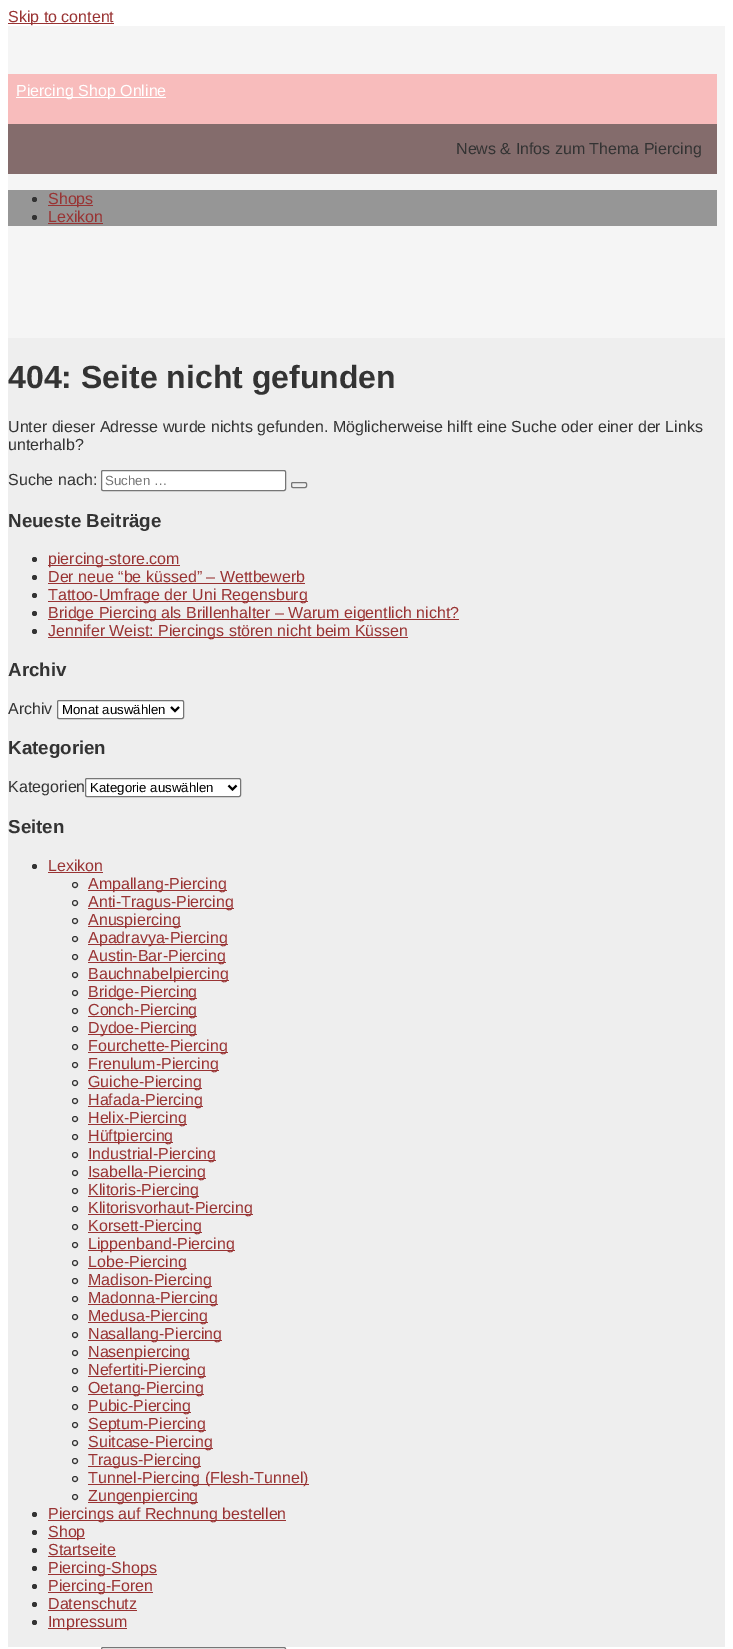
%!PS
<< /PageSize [733 1649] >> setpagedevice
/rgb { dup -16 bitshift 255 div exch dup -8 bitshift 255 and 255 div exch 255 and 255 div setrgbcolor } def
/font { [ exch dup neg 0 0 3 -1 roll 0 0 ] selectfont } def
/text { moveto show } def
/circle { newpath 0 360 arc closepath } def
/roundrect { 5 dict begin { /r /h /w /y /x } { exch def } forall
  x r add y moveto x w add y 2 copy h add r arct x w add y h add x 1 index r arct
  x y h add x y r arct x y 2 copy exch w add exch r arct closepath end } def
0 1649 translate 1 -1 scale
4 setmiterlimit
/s1 { /LiberationSans-Regular 16 font 16#993333 rgb } def
/s2 { /LiberationSans-Regular 16 font 16#FFFFFF rgb } def
/s3 { /LiberationSans-Regular 16 font 16#333333 rgb } def
/s4 { /LiberationSans-Bold 32 font 16#333333 rgb } def
/s5 { /LiberationSans-Regular 13.25 font 16#757575 rgb } def
/s6 { /LiberationSans-Bold 18.75 font 16#333333 rgb } def
/s7 { /LiberationSans-Regular 13.25 font 16#000000 rgb } def
16#FFFFFF rgb
0 0 733 1649 rectfill
16#993333 rgb
8 23 106 1 rectfill
s1
(Skip to content) 8 22 text
16#EEEEEE rgb
8 338 717 1309 rectfill
16#F5F5F5 rgb
8 26 717 312 rectfill
16#F8BCBC rgb
8 74 709 50 rectfill
16#FFFFFF rgb
16 97 150 1 rectfill
(Piercing Shop Online) 16 96 text
16#846C6C rgb
8 124 709 50 rectfill
s3
(News & Infos zum Thema Piercing) 456 154 text
16#969696 rgb
8 190 709 36 rectfill
16#333333 rgb
34.5 199.5 2.5 circle fill
16#993333 rgb
48 205 45 1 rectfill
(Shops) 48 204 text
16#333333 rgb
34.5 217.5 2.5 circle fill
s1
(Lexikon) 48 222 text
48 223 55 1 rectfill
s4
(404: Seite nicht gefunden) 8 388 text
s3
(Unter dieser Adresse wurde nichts gefunden. Möglicherweise hilft eine Suche oder einer der Links) 8 432 text
(unterhalb?) 8 450 text
(Suche nach:) 8 485 text
16#FFFFFF rgb
101.5 470.5 184 20 1.5 roundrect gsave fill grestore
16#767676 rgb
stroke
s5
(Suchen …) 105 485 text
16#767676 rgb
291.5 482.5 15 5 1.5 roundrect stroke
s6
(Neueste Beiträge) 8 527 text
34.5 559.5 2.5 circle fill
16#993333 rgb
48 565 132 1 rectfill
s1
(piercing-store.com) 48 564 text
16#333333 rgb
34.5 577.5 2.5 circle fill
s1
(Der neue “be küssed” – Wettbewerb) 48 582 text
48 583 257 1 rectfill
16#333333 rgb
34.5 595.5 2.5 circle fill
16#993333 rgb
48 601 260 1 rectfill
(Tattoo-Umfrage der Uni Regensburg) 48 600 text
16#333333 rgb
34.5 613.5 2.5 circle fill
16#993333 rgb
48 619 411 1 rectfill
(Bridge Piercing als Brillenhalter – Warum eigentlich nicht?) 48 618 text
16#333333 rgb
34.5 631.5 2.5 circle fill
16#993333 rgb
48 637 360 1 rectfill
(Jennifer Weist: Piercings stören nicht beim Küssen) 48 636 text
s6
(Archiv) 8 676 text
s3
(Archiv) 8 714 text
16#FFFFFF rgb
57.5 700.5 126 18 1.5 roundrect gsave fill grestore
16#767676 rgb
stroke
16#000000 rgb
2 setlinewidth
171 707 moveto 175 711 lineto 179 707 lineto stroke
s7
(Monat auswählen) 62 714 text
s6
(Kategorien) 8 754 text
s3
(Kategorien) 8 792 text
16#FFFFFF rgb
85.5 778.5 155 18 1.5 roundrect gsave fill grestore
16#767676 rgb
1 setlinewidth
stroke
16#000000 rgb
2 setlinewidth
228.5 785.5 moveto 232.5 789.5 lineto 236.5 785.5 lineto stroke
s7
(Kategorie auswählen) 90 792 text
s6
(Seiten) 8 833 text
34.5 866.5 2.5 circle fill
s1
(Lexikon) 48 871 text
48 872 55 1 rectfill
16#333333 rgb
1 setlinewidth
75 885 2.5 circle stroke
16#993333 rgb
88 890 139 1 rectfill
(Ampallang-Piercing) 88 889 text
16#333333 rgb
75 903 2.5 circle stroke
16#993333 rgb
88 908 146 1 rectfill
(Anti-Tragus-Piercing) 88 907 text
16#333333 rgb
75 921 2.5 circle stroke
16#993333 rgb
88 926 93 1 rectfill
(Anuspiercing) 88 925 text
16#333333 rgb
75 939 2.5 circle stroke
16#993333 rgb
88 944 140 1 rectfill
(Apadravya-Piercing) 88 943 text
16#333333 rgb
75 957 2.5 circle stroke
16#993333 rgb
88 962 138 1 rectfill
(Austin-Bar-Piercing) 88 961 text
16#333333 rgb
75 975 2.5 circle stroke
16#993333 rgb
88 980 141 1 rectfill
(Bauchnabelpiercing) 88 979 text
16#333333 rgb
75 993 2.5 circle stroke
16#993333 rgb
88 998 109 1 rectfill
(Bridge-Piercing) 88 997 text
16#333333 rgb
75 1011 2.5 circle stroke
16#993333 rgb
88 1016 109 1 rectfill
(Conch-Piercing) 88 1015 text
16#333333 rgb
75 1029 2.5 circle stroke
16#993333 rgb
88 1034 109 1 rectfill
(Dydoe-Piercing) 88 1033 text
16#333333 rgb
75 1047 2.5 circle stroke
16#993333 rgb
88 1052 140 1 rectfill
(Fourchette-Piercing) 88 1051 text
16#333333 rgb
75 1065 2.5 circle stroke
16#993333 rgb
88 1070 131 1 rectfill
(Frenulum-Piercing) 88 1069 text
16#333333 rgb
75 1083 2.5 circle stroke
16#993333 rgb
88 1088 114 1 rectfill
(Guiche-Piercing) 88 1087 text
16#333333 rgb
75 1101 2.5 circle stroke
16#993333 rgb
88 1106 115 1 rectfill
(Hafada-Piercing) 88 1105 text
16#333333 rgb
75 1119 2.5 circle stroke
16#993333 rgb
88 1124 99 1 rectfill
(Helix-Piercing) 88 1123 text
16#333333 rgb
75 1137 2.5 circle stroke
16#993333 rgb
88 1142 85 1 rectfill
(Hüftpiercing) 88 1141 text
16#333333 rgb
75 1155 2.5 circle stroke
16#993333 rgb
88 1160 128 1 rectfill
(Industrial-Piercing) 88 1159 text
16#333333 rgb
75 1173 2.5 circle stroke
16#993333 rgb
88 1178 118 1 rectfill
(Isabella-Piercing) 88 1177 text
16#333333 rgb
75 1191 2.5 circle stroke
16#993333 rgb
88 1196 111 1 rectfill
(Klitoris-Piercing) 88 1195 text
16#333333 rgb
75 1209 2.5 circle stroke
16#993333 rgb
88 1214 165 1 rectfill
(Klitorisvorhaut-Piercing) 88 1213 text
16#333333 rgb
75 1227 2.5 circle stroke
16#993333 rgb
88 1232 114 1 rectfill
(Korsett-Piercing) 88 1231 text
16#333333 rgb
75 1245 2.5 circle stroke
16#993333 rgb
88 1250 147 1 rectfill
(Lippenband-Piercing) 88 1249 text
16#333333 rgb
75 1263 2.5 circle stroke
16#993333 rgb
88 1268 99 1 rectfill
(Lobe-Piercing) 88 1267 text
16#333333 rgb
75 1281 2.5 circle stroke
16#993333 rgb
88 1286 124 1 rectfill
(Madison-Piercing) 88 1285 text
16#333333 rgb
75 1299 2.5 circle stroke
16#993333 rgb
88 1304 130 1 rectfill
(Madonna-Piercing) 88 1303 text
16#333333 rgb
75 1317 2.5 circle stroke
16#993333 rgb
88 1322 120 1 rectfill
(Medusa-Piercing) 88 1321 text
16#333333 rgb
75 1335 2.5 circle stroke
16#993333 rgb
88 1340 134 1 rectfill
(Nasallang-Piercing) 88 1339 text
16#333333 rgb
75 1353 2.5 circle stroke
16#993333 rgb
88 1358 102 1 rectfill
(Nasenpiercing) 88 1357 text
16#333333 rgb
75 1371 2.5 circle stroke
16#993333 rgb
88 1376 118 1 rectfill
(Nefertiti-Piercing) 88 1375 text
16#333333 rgb
75 1389 2.5 circle stroke
16#993333 rgb
88 1394 116 1 rectfill
(Oetang-Piercing) 88 1393 text
16#333333 rgb
75 1407 2.5 circle stroke
16#993333 rgb
88 1412 103 1 rectfill
(Pubic-Piercing) 88 1411 text
16#333333 rgb
75 1425 2.5 circle stroke
16#993333 rgb
88 1430 118 1 rectfill
(Septum-Piercing) 88 1429 text
16#333333 rgb
75 1443 2.5 circle stroke
16#993333 rgb
88 1448 125 1 rectfill
(Suitcase-Piercing) 88 1447 text
16#333333 rgb
75 1461 2.5 circle stroke
16#993333 rgb
88 1466 113 1 rectfill
(Tragus-Piercing) 88 1465 text
16#333333 rgb
75 1479 2.5 circle stroke
16#993333 rgb
88 1484 221 1 rectfill
(Tunnel-Piercing \(Flesh-Tunnel\)) 88 1483 text
16#333333 rgb
75 1497 2.5 circle stroke
16#993333 rgb
88 1502 110 1 rectfill
(Zungenpiercing) 88 1501 text
16#333333 rgb
34.5 1514.5 2.5 circle fill
16#993333 rgb
48 1520 238 1 rectfill
(Piercings auf Rechnung bestellen) 48 1519 text
16#333333 rgb
34.5 1532.5 2.5 circle fill
16#993333 rgb
48 1538 37 1 rectfill
(Shop) 48 1537 text
16#333333 rgb
34.5 1550.5 2.5 circle fill
s1
(Startseite) 48 1555 text
48 1556 68 1 rectfill
16#333333 rgb
34.5 1568.5 2.5 circle fill
16#993333 rgb
48 1574 109 1 rectfill
(Piercing-Shops) 48 1573 text
16#333333 rgb
34.5 1586.5 2.5 circle fill
16#993333 rgb
48 1592 105 1 rectfill
(Piercing-Foren) 48 1591 text
16#333333 rgb
34.5 1604.5 2.5 circle fill
s1
(Datenschutz) 48 1609 text
48 1610 89 1 rectfill
16#333333 rgb
34.5 1622.5 2.5 circle fill
16#993333 rgb
48 1628 79 1 rectfill
(Impressum) 48 1627 text
16#767676 rgb
101.5 1647.5 184 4 1.5 roundrect stroke
showpage
